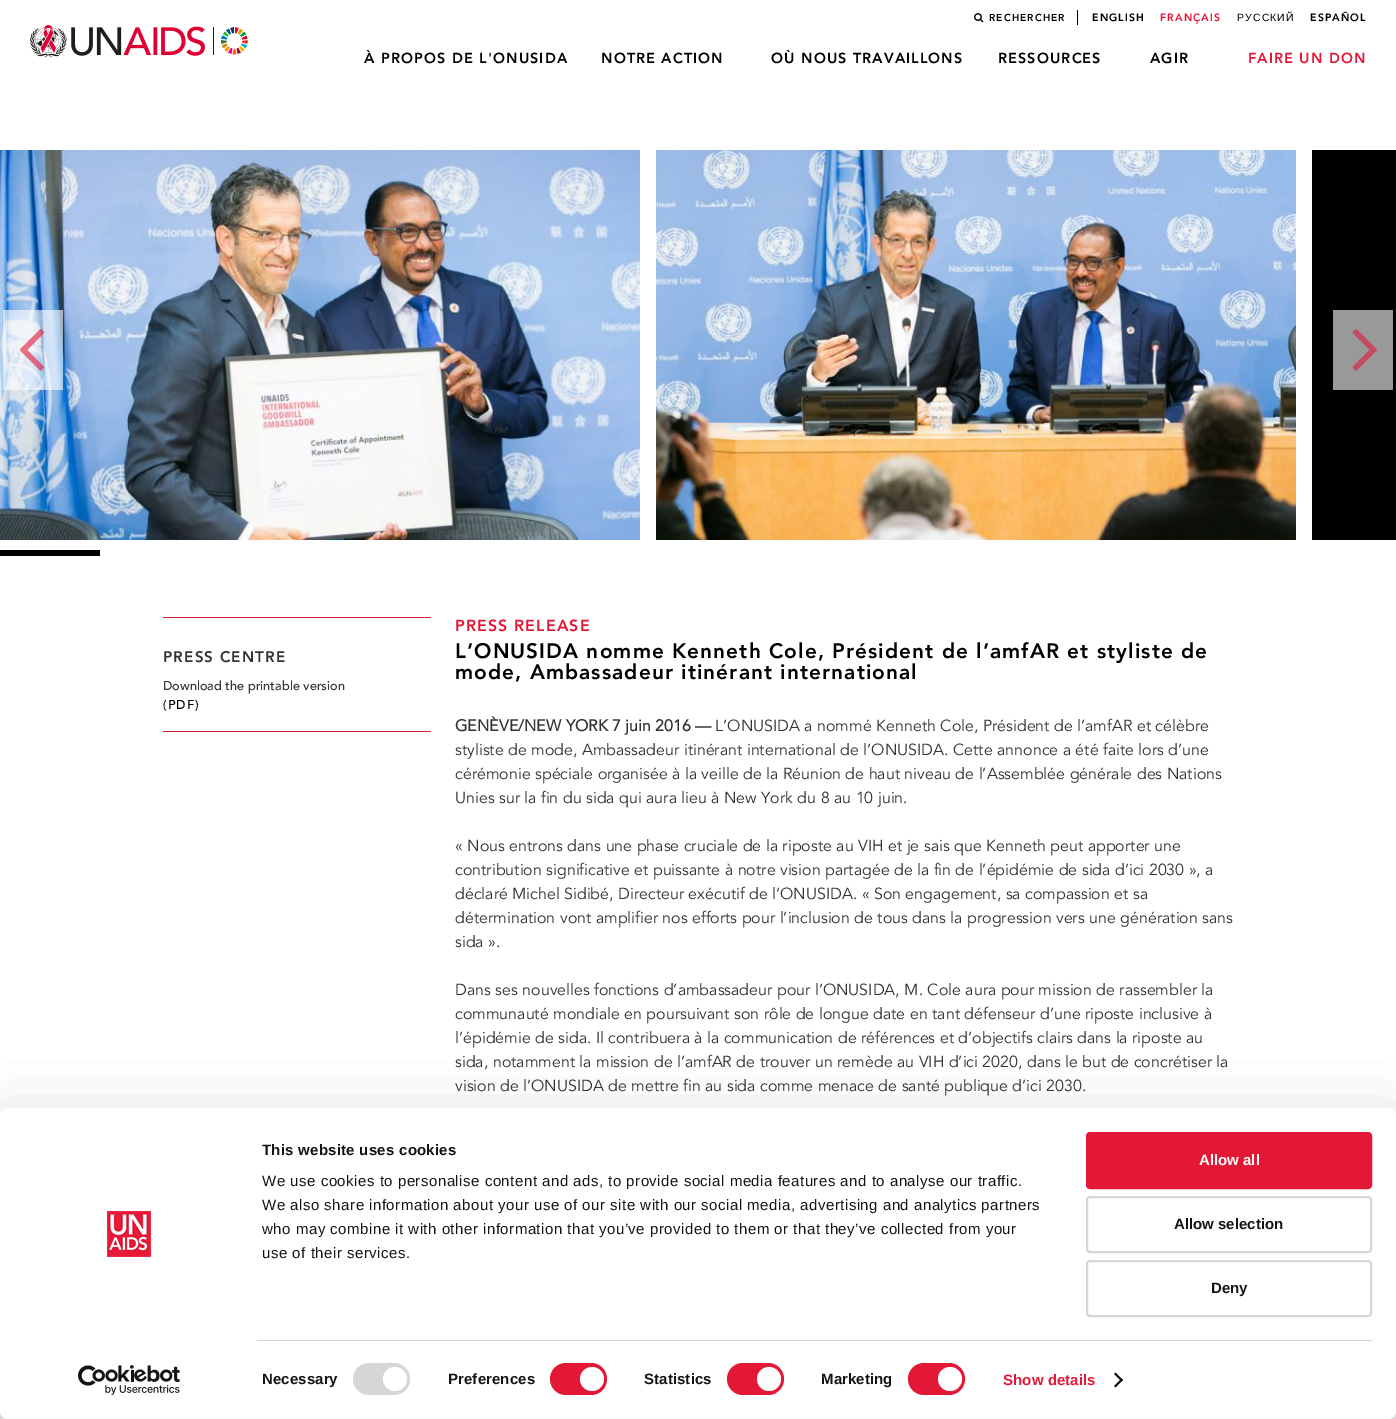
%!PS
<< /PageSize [1396 1419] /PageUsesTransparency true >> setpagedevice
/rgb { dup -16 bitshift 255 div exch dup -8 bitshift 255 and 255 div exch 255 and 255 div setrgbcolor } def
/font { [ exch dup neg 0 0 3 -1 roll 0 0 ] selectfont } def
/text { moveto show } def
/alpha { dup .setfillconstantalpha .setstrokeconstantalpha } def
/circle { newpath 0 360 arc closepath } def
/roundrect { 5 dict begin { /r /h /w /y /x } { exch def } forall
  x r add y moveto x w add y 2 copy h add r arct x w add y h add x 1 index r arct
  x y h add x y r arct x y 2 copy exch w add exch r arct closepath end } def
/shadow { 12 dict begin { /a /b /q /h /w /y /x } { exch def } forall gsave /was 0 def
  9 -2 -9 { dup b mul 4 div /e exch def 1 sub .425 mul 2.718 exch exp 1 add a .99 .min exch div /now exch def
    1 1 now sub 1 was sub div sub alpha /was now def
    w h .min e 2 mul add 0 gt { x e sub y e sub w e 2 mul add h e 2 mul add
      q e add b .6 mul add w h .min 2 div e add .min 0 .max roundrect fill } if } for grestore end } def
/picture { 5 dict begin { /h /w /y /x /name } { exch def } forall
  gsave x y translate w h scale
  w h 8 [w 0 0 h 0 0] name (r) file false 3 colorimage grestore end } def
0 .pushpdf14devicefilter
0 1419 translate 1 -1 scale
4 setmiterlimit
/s1 { /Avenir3-Regular 12.75 font 16#333333 rgb } def
/s2 { /Avenir-Bold 16 font 16#333333 rgb } def
/s3 { /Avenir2-Regular 16 font 16#333333 rgb } def
/s4 { /LiberationSans-Bold 15 font 16#FFFFFF rgb } def
/s5 { /LiberationSans-Bold 15 font 16#141414 rgb } def
16#FFFFFF rgb
0 0 1396 1419 rectfill
(pic1.raw) 30 25 218 33 picture
16#000000 rgb
1077 10 1 15 rectfill
(pic2.raw) 974 13 10 10 picture
/Avenir-Regular 10 font
989 21 moveto 1.1 0 (RECHERCHER) ashow
/Avenir-Regular 10.5 font
1092 21 moveto 1.1 0 (ENGLISH) ashow
16#E31837 rgb
1160 21 moveto 1.1 0 (FRANÇAIS) ashow
/LiberationSans-Regular 10.5 font
16#000000 rgb
1237 21 moveto 1.1 0 (РУССКИЙ) ashow
/Avenir-Regular 10.5 font
1310 21 moveto 1.1 0 (ESPAÑOL) ashow
/Avenir-Regular 14.4 font
364 63 moveto 1.1 0 (À PROPOS DE L'ONUSIDA) ashow
601 63 moveto 1.1 0 (NOTRE ACTION) ashow
771 63 moveto 1.1 0 (OÙ NOUS TRAVAILLONS) ashow
998 63 moveto 1.1 0 (RESSOURCES) ashow
1150 63 moveto 1.1 0 (AGIR) ashow
16#E31837 rgb
1248 63 moveto 1.1 0 (FAIRE UN DON) ashow
(pic3.raw) 0 150 640 390 picture
(pic4.raw) 656 150 640 390 picture
16#000000 rgb
1312 150 84 390 rectfill
0 550 100 6 rectfill
0.6 alpha
16#FFFFFF rgb
3 310 60 80 rectfill
1 alpha
(pic5.raw) 19 329 26 42 picture
16#999999 rgb
1333 310 60 80 rectfill
(pic6.raw) 1352 329 25 42 picture
16#CF233A rgb
163 617 268 1 rectfill
163 731 268 1 rectfill
/Avenir-Regular 15.25 font
16#333333 rgb
163 662 moveto 1.1 0 (PRESS CENTRE) ashow
s1
(Download the printable version) 163 690 text
16#000000 rgb
163 709 moveto 1.1 0 (\(PDF\)) ashow
/Avenir-Regular 16 font
16#E31837 rgb
455 631 moveto 1.1 0 (PRESS RELEASE) ashow
/Avenir-Regular 20.8 font
16#000000 rgb
455 658 moveto 1.1 0 (L’ONUSIDA nomme Kenneth Cole, Président de l’amfAR et styliste de) ashow
455 679 moveto 1.1 0 (mode, Ambassadeur itinérant international) ashow
s2
(GENÈVE/NEW YORK 7 juin 2016 —) 455 731 text
s3
(L’ONUSIDA a nommé Kenneth Cole, Président de l’amfAR et célèbre) 715 731 text
(styliste de mode, Ambassadeur itinérant international de l’ONUSIDA. Cette annonce a été faite lors d’une) 455 755 text
(cérémonie spéciale organisée à la veille de la Réunion de haut niveau de l’Assemblée générale des Nations) 455 779 text
(Unies sur la fin du sida qui aura lieu à New York du 8 au 10 juin.) 455 803 text
(« Nous entrons dans une phase cruciale de la riposte au VIH et je sais que Kenneth peut apporter une) 455 851 text
(contribution significative et puissante à notre vision partagée de la fin de l’épidémie de sida d’ici 2030 », a) 455 875 text
(déclaré Michel Sidibé, Directeur exécutif de l’ONUSIDA. « Son engagement, sa compassion et sa) 455 899 text
(détermination vont amplifier nos efforts pour l’inclusion de tous dans la progression vers une génération sans) 455 923 text
(sida ».) 455 947 text
(Dans ses nouvelles fonctions d’ambassadeur pour l’ONUSIDA, M. Cole aura pour mission de rassembler la) 455 995 text
(communauté mondiale en poursuivant son rôle de longue date en tant défenseur d’une riposte inclusive à) 455 1019 text
(l’épidémie de sida. Il contribuera à la communication de références et d’objectifs clairs dans la riposte au) 455 1043 text
(sida, notamment la mission de l’amfAR de trouver un remède au VIH d’ici 2020, dans le but de concrétiser la) 455 1067 text
(vision de l’ONUSIDA de mettre fin au sida comme menace de santé publique d’ici 2030.) 455 1091 text
16#000000 rgb
0 1138 1396 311 8 35 0.3 shadow
16#FFFFFF rgb
0 1108 1396 311 8 roundrect fill
(pic7.raw) 107 1211 44 46 picture
(pic8.raw) 78 1365 102 30 picture
/LiberationSans-Bold 15 font
16#141414 rgb
262 1155 moveto 0.25 0 (This website uses cookies) ashow
/LiberationSans-Regular 15 font
262 1186 moveto 0.5 0 (We use cookies to personalise content and ads, to provide social media features and to analyse our traffic.) ashow
262 1210 moveto 0.5 0 (We also share information about your use of our site with our social media, advertising and analytics partners) ashow
262 1234 moveto 0.5 0 (who may combine it with other information that you’ve provided to them or that they’ve collected from your) ashow
262 1258 moveto 0.5 0 (use of their services.) ashow
16#D6D6D6 rgb
257 1340 1115 1 rectfill
/LiberationSans-Bold 15 font
16#141414 rgb
262 1384 moveto 0.1 0 (Necessary) ashow
16#D6D6D6 rgb
353 1363 57 32 16 roundrect fill
16#FFFFFF rgb
395 1379 12 circle fill
16#141414 rgb
448 1384 moveto 0.1 0 (Preferences) ashow
16#E31837 rgb
550 1363 57 32 16 roundrect fill
16#FFFFFF rgb
592 1379 12 circle fill
16#141414 rgb
644 1384 moveto 0.1 0 (Statistics) ashow
16#E31837 rgb
727 1363 57 32 16 roundrect fill
16#FFFFFF rgb
769 1379 12 circle fill
16#141414 rgb
821 1384 moveto 0.1 0 (Marketing) ashow
16#E31837 rgb
908 1363 57 32 16 roundrect fill
16#FFFFFF rgb
950 1379 12 circle fill
16#E31837 rgb
1003 1385 moveto 0.1 0 (Show details) ashow
16#141414 rgb
1115.5 1372.5 moveto 1123 1380 lineto 1121.5 1381.5 lineto 1114 1374 lineto closepath fill
1121.5 1378.5 moveto 1123 1380 lineto 1115.5 1387.5 lineto 1114 1386 lineto closepath fill
16#E31837 rgb
1087 1133 284 55 3 roundrect gsave fill grestore
2 setlinewidth
stroke
s4
(Allow all) 1199 1165 text
16#D6D6D6 rgb
1087 1197 284 55 3 roundrect stroke
s5
(Allow selection) 1174 1229 text
16#D6D6D6 rgb
1087 1261 284 55 3 roundrect stroke
s5
(Deny) 1211 1293 text
.poppdf14devicefilter showpage
